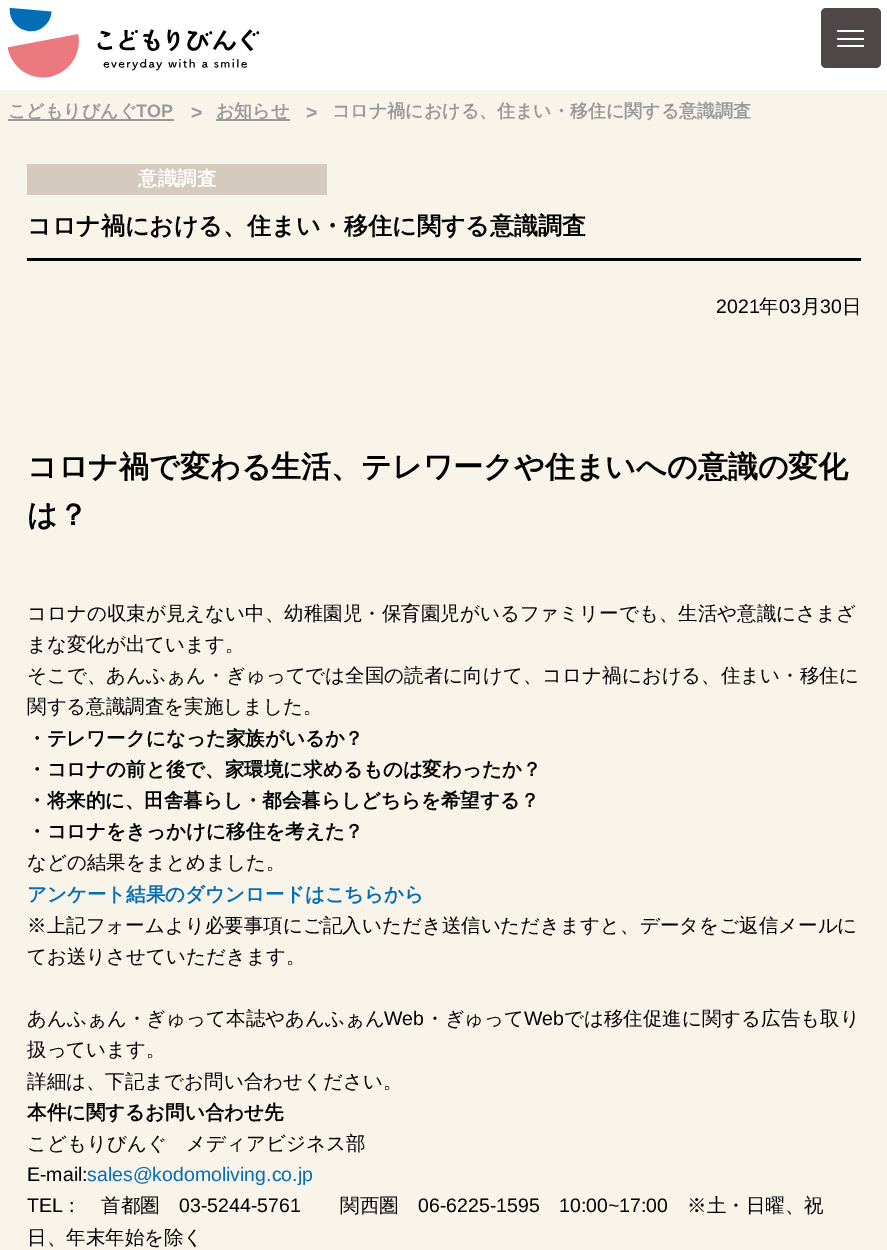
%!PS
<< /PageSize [887 1250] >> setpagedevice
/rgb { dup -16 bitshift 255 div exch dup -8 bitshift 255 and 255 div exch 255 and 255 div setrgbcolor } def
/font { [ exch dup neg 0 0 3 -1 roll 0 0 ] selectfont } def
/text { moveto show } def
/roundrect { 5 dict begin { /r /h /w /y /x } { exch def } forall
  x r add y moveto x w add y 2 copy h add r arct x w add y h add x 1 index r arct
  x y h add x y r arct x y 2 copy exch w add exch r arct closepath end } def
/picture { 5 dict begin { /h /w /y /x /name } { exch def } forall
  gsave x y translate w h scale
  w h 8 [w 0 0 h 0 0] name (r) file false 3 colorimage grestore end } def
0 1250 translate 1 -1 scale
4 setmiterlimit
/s1 { /WenQuanYiZenHei-Bold 18 font 16#999999 rgb } def
/s2 { /LiberationSans-Bold 18 font 16#999999 rgb } def
/s3 { /LiberationSans-Bold 19.5 font 16#999999 rgb } def
/s4 { /WenQuanYiZenHei-Bold 19.5 font 16#FFFFFF rgb } def
/s5 { /WenQuanYiZenHei-Bold 24 font 16#000000 rgb } def
/s6 { /LiberationSans-Regular 19.5 font 16#000000 rgb } def
/s7 { /WenQuanYiZenHei-Medium 19.5 font 16#000000 rgb } def
/s8 { /WenQuanYiZenHei-Bold 30 font 16#000000 rgb } def
/s9 { /WenQuanYiZenHei-Bold 19.5 font 16#000000 rgb } def
/s10 { /WenQuanYiZenHei-Bold 19.5 font 16#036EB8 rgb } def
/s11 { /LiberationSans-Regular 19.5 font 16#036EB8 rgb } def
16#FFFFFF rgb
0 0 887 1250 rectfill
(pic1.raw) 8 8 252 70 picture
16#4F4647 rgb
821 8 60 60 5 roundrect fill
16#FFFFFF rgb
837 30 27 2 rectfill
837 38 27 2 rectfill
837 45 27 2 rectfill
16#F9F4E9 rgb
0 90 887 1160 rectfill
16#999999 rgb
8 119 166 2 rectfill
s1
(こどもりびんぐ) 8 117 text
s2
(TOP) 136 117 text
s3
(>) 191 119 text
216 119 74 2 rectfill
s1
(お知らせ) 216 117 text
s3
(>) 306 119 text
s1
(コロナ禍における、住まい・移住に関する意識調査) 332 117 text
16#D4CABD rgb
27 164 300 31 rectfill
s4
(意識調査) 138 185 text
16#000000 rgb
27 258 834 3 rectfill
s5
(コロナ禍における、住まい・移住に関する意識調査) 27 234 text
s6
(2021) 716 313 text
s7
(年) 759 313 text
s6
(03) 779 313 text
s7
(月) 801 313 text
s6
(30) 820 313 text
s7
(日) 842 313 text
s8
(コロナ禍で変わる生活、テレワークや住まいへの意識の変化) 27 477 text
(は？) 27 525 text
s7
(コロナの収束が見えない中、幼稚園児・保育園児がいるファミリーでも、生活や意識にさまざ) 27 620 text
(まな変化が出ています。) 27 651 text
(そこで、あんふぁん・ぎゅってでは全国の読者に向けて、コロナ禍における、住まい・移住に) 27 682 text
(関する意識調査を実施しました。) 27 713 text
s9
(・テレワークになった家族がいるか？) 27 745 text
(・コロナの前と後で、家環境に求めるものは変わったか？) 27 776 text
(・将来的に、田舎暮らし・都会暮らしどちらを希望する？) 27 807 text
(・コロナをきっかけに移住を考えた？) 27 838 text
s7
(などの結果をまとめました。) 27 869 text
s10
(アンケート結果のダウンロードはこちらから) 27 901 text
s7
(※上記フォームより必要事項にご記入いただき送信いただきますと、データをご返信メールに) 27 932 text
(てお送りさせていただきます。) 27 963 text
(あんふぁん・ぎゅって本誌やあんふぁん) 27 1025 text
s6
(Web) 384 1025 text
s7
(・ぎゅって) 425 1025 text
s6
(Web) 524 1025 text
s7
(では移住促進に関する広告も取り) 564 1025 text
(扱っています。) 27 1056 text
(詳細は、下記までお問い合わせください。) 27 1088 text
s9
(本件に関するお問い合わせ先) 27 1119 text
s7
(こどもりびんぐ　メディアビジネス部) 27 1150 text
s6
(E-mail:) 27 1181 text
s11
(sales@kodomoliving.co.jp) 87 1181 text
s6
(TEL) 27 1212 text
s7
(：　首都圏) 62 1212 text
s6
(03-5244-5761) 179 1212 text
s7
(関西圏) 340 1212 text
s6
(06-6225-1595) 418 1212 text
(10:00~17:00) 559 1212 text
s7
(※土・日曜、祝) 687 1212 text
(日、年末年始を除く) 27 1244 text
showpage
